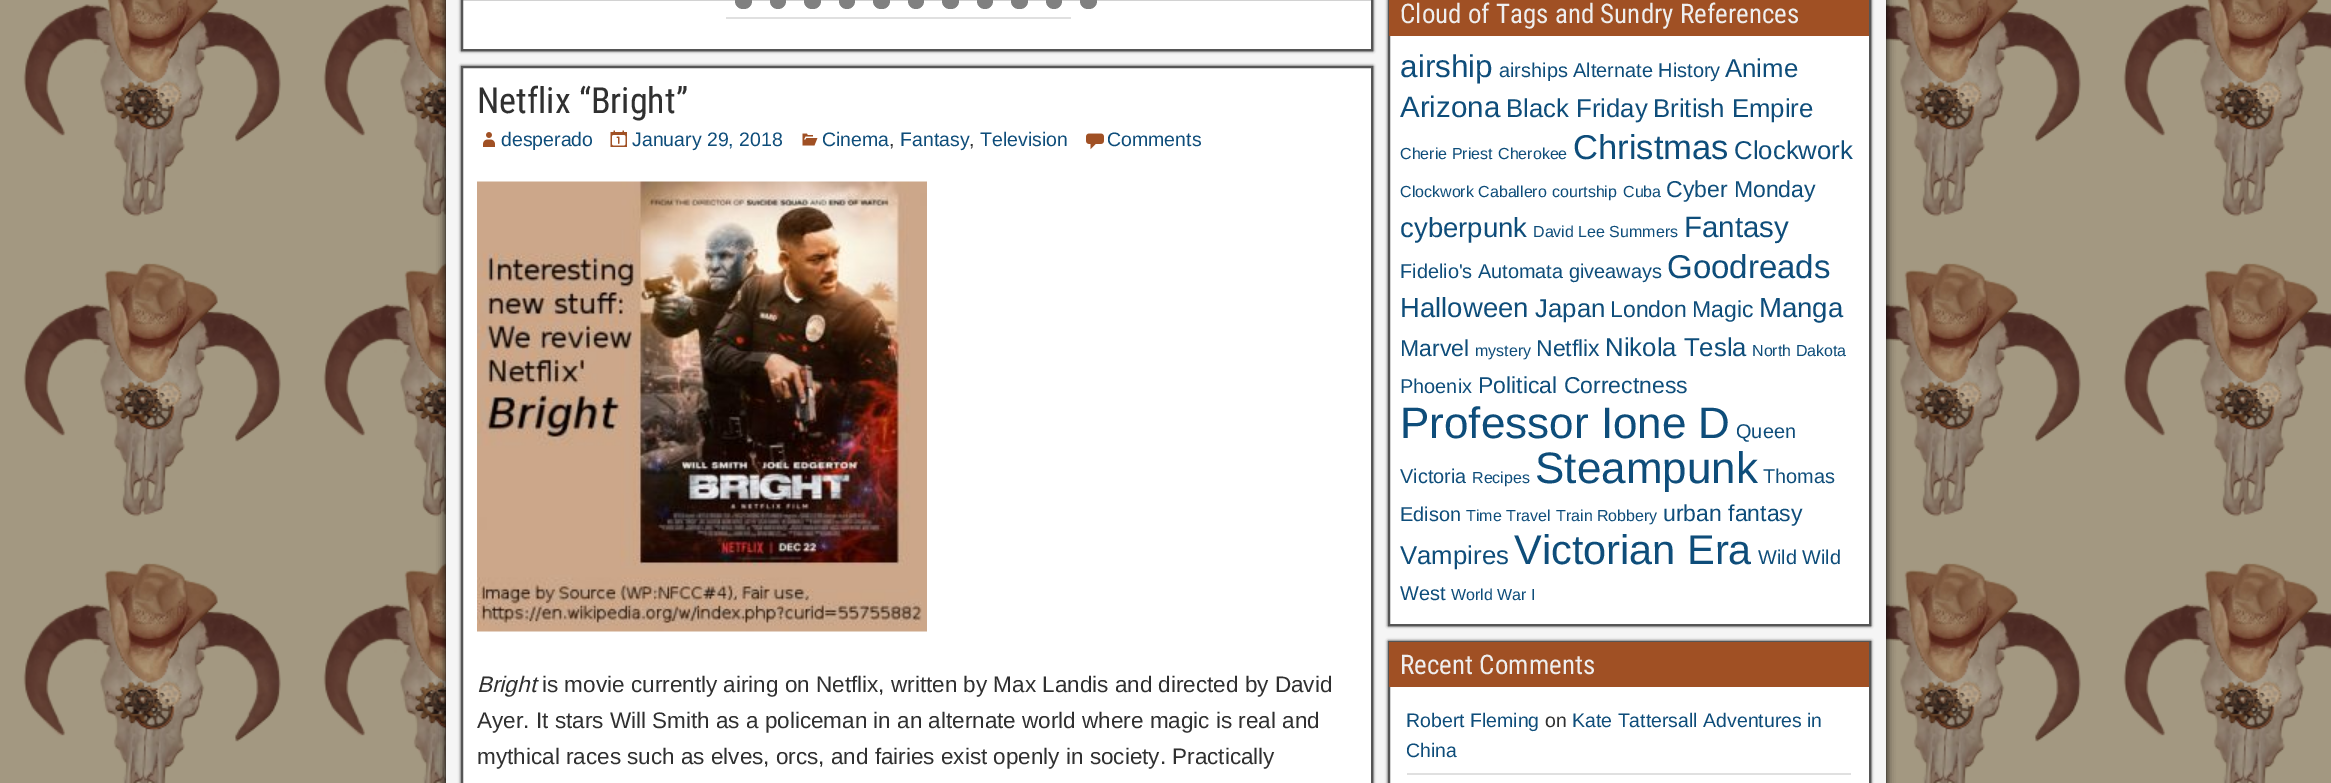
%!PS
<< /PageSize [2331 783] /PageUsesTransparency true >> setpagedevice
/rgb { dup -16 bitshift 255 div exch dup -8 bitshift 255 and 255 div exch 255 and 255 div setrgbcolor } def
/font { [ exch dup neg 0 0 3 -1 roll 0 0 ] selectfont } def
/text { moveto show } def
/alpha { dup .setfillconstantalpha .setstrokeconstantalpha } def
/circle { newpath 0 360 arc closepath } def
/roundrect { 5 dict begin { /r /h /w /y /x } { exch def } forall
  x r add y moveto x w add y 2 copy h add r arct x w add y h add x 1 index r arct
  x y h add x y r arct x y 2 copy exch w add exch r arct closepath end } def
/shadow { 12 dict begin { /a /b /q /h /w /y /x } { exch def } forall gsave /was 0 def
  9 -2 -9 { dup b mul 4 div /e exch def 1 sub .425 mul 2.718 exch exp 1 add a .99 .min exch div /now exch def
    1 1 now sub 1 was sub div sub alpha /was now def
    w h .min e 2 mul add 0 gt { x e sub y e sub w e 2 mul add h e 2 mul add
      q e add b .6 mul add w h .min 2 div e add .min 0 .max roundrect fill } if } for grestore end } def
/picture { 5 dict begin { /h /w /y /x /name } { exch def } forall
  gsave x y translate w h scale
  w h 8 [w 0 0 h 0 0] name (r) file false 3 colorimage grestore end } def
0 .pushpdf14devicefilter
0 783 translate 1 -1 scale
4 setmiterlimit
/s1 { /RobotoCondensed-Regular 36 font 16#303030 rgb } def
/s2 { /LiberationSans-Regular 19.5 font 16#0E4D7A rgb } def
/s3 { /LiberationSans-Regular 19.5 font 16#303030 rgb } def
/s4 { /Arimo-Italic 22.5 font 16#303030 rgb } def
/s5 { /Arimo-Regular 22.5 font 16#303030 rgb } def
/s6 { /RobotoCondensed-Regular 27 font 16#EEEEEE rgb } def
/s7 { /LiberationSans-Regular 31.5 font 16#0E4D7A rgb } def
/s8 { /LiberationSans-Regular 19.9 font 16#0E4D7A rgb } def
/s9 { /LiberationSans-Regular 25.75 font 16#0E4D7A rgb } def
/s10 { /LiberationSans-Regular 29.5 font 16#0E4D7A rgb } def
/s11 { /LiberationSans-Regular 16 font 16#0E4D7A rgb } def
/s12 { /LiberationSans-Regular 34.5 font 16#0E4D7A rgb } def
/s13 { /LiberationSans-Regular 23 font 16#0E4D7A rgb } def
/s14 { /LiberationSans-Regular 27.5 font 16#0E4D7A rgb } def
/s15 { /LiberationSans-Regular 33 font 16#0E4D7A rgb } def
/s16 { /LiberationSans-Regular 44 font 16#0E4D7A rgb } def
/s17 { /LiberationSans-Regular 41.5 font 16#0E4D7A rgb } def
16#FFFFFF rgb
0 0 2331 783 rectfill
(pic1.raw) 0 0 2331 783 picture
16#000000 rgb
446 -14 1440 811 0 4.5 1 shadow
16#F5F5F5 rgb
446 0 1440 783 rectfill
16#333333 rgb
461 -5 912 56 0 1.5 1 shadow
16#FFFFFF rgb
462 -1 moveto 1372 -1 lineto 1372 50 lineto 462 50 lineto closepath gsave fill grestore
16#555555 rgb
2 setlinewidth
stroke
16#E0E0E0 rgb
726 17 345 2 rectfill
16#808080 rgb
735 -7 17 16 8 roundrect fill
778 1 8 circle fill
804 -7 17 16 8 roundrect fill
847 1 8 circle fill
873 -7 17 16 8 roundrect fill
916 1 8 circle fill
942 -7 17 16 8 roundrect fill
985 1 8 circle fill
1011 -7 17 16 8 roundrect fill
1054 1 8 circle fill
1080 -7 17 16 8 roundrect fill
16#333333 rgb
461 66 912 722 0 1.5 1 shadow
16#FFFFFF rgb
462 67 moveto 1372 67 lineto 1372 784 lineto 462 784 lineto closepath gsave fill grestore
16#555555 rgb
stroke
s1
(Netflix “Bright”) 477 113 text
(pic2.raw) 483 132 12 15 picture
s2
(desperado) 501 146 text
(pic3.raw) 610 130 17 17 picture
(January 29, 2018) 632 146 text
(pic4.raw) 802 133 16 13 picture
(Cinema) 822 146 text
s3
(,) 889 146 text
s2
(Fantasy) 900 146 text
s3
(,) 969 146 text
s2
(Television) 980 146 text
(pic5.raw) 1086 133 18 17 picture
(Comments) 1107 146 text
(pic6.raw) 477 181 450 451 picture
s4
(Bright) 477 692 text
s5
(is movie currently airing on Netflix, written by Max Landis and directed by David) 542 692 text
(Ayer. It stars Will Smith as a policeman in an alternate world where magic is real and) 477 728 text
(mythical races such as elves, orcs, and fairies exist openly in society. Practically) 477 764 text
16#333333 rgb
1388 -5 483 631 0 1.5 1 shadow
16#FFFFFF rgb
1390 36 479 588 rectfill
16#555555 rgb
1389 -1 481 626 rectstroke
16#A05024 rgb
1389 0 480 36 rectfill
s6
(Cloud of Tags and Sundry References) 1400 23 text
s7
(airship) 1400 77 text
s8
(airships Alternate History) 1499 77 text
s9
(Anime) 1725 77 text
s10
(Arizona) 1400 117 text
s9
(Black Friday) 1506 117 text
(British Empire) 1653 117 text
s11
(Cherie Priest) 1400 159 text
(Cherokee) 1498 159 text
s12
(Christmas) 1573 159 text
s9
(Clockwork) 1734 159 text
s11
(Clockwork Caballero) 1400 197 text
(courtship) 1552 197 text
(Cuba) 1623 197 text
s13
(Cyber Monday) 1666 197 text
s14
(cyberpunk) 1400 237 text
s11
(David Lee Summers) 1533 237 text
s10
(Fantasy) 1684 237 text
s8
(Fidelio's Automata giveaways) 1400 278 text
s15
(Goodreads) 1667 278 text
s14
(Halloween) 1400 317 text
s9
(Japan) 1535 317 text
s13
(London) 1610 317 text
(Magic) 1692 317 text
s14
(Manga) 1759 317 text
s13
(Marvel) 1400 356 text
s11
(mystery) 1475 356 text
s13
(Netflix) 1536 356 text
s9
(Nikola Tesla) 1605 356 text
s11
(North Dakota) 1752 356 text
s8
(Phoenix) 1400 393 text
s13
(Political Correctness) 1478 393 text
s16
(Professor Ione D) 1400 438 text
s8
(Queen) 1736 438 text
(Victoria) 1400 483 text
s11
(Recipes) 1472 483 text
s16
(Steampunk) 1535 483 text
s8
(Thomas) 1763 483 text
(Edison) 1400 521 text
s11
(Time Travel) 1466 521 text
(Train Robbery) 1556 521 text
s13
(urban fantasy) 1663 521 text
s9
(Vampires) 1400 564 text
s17
(Victorian Era) 1514 564 text
s8
(Wild Wild) 1758 564 text
(West) 1400 600 text
s11
(World War I) 1451 600 text
16#333333 rgb
1388 641 483 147 0 1.5 1 shadow
16#FFFFFF rgb
1390 687 479 96 rectfill
16#555555 rgb
1389 642 481 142 rectstroke
16#A05024 rgb
1389 642 480 45 rectfill
s6
(Recent Comments) 1400 674 text
16#E0E0E0 rgb
1407 773 444 2 rectfill
s2
(Robert Fleming) 1406 727 text
s3
(on) 1545 727 text
s2
(Kate Tattersall Adventures in) 1572 727 text
(China) 1406 757 text
.poppdf14devicefilter showpage
